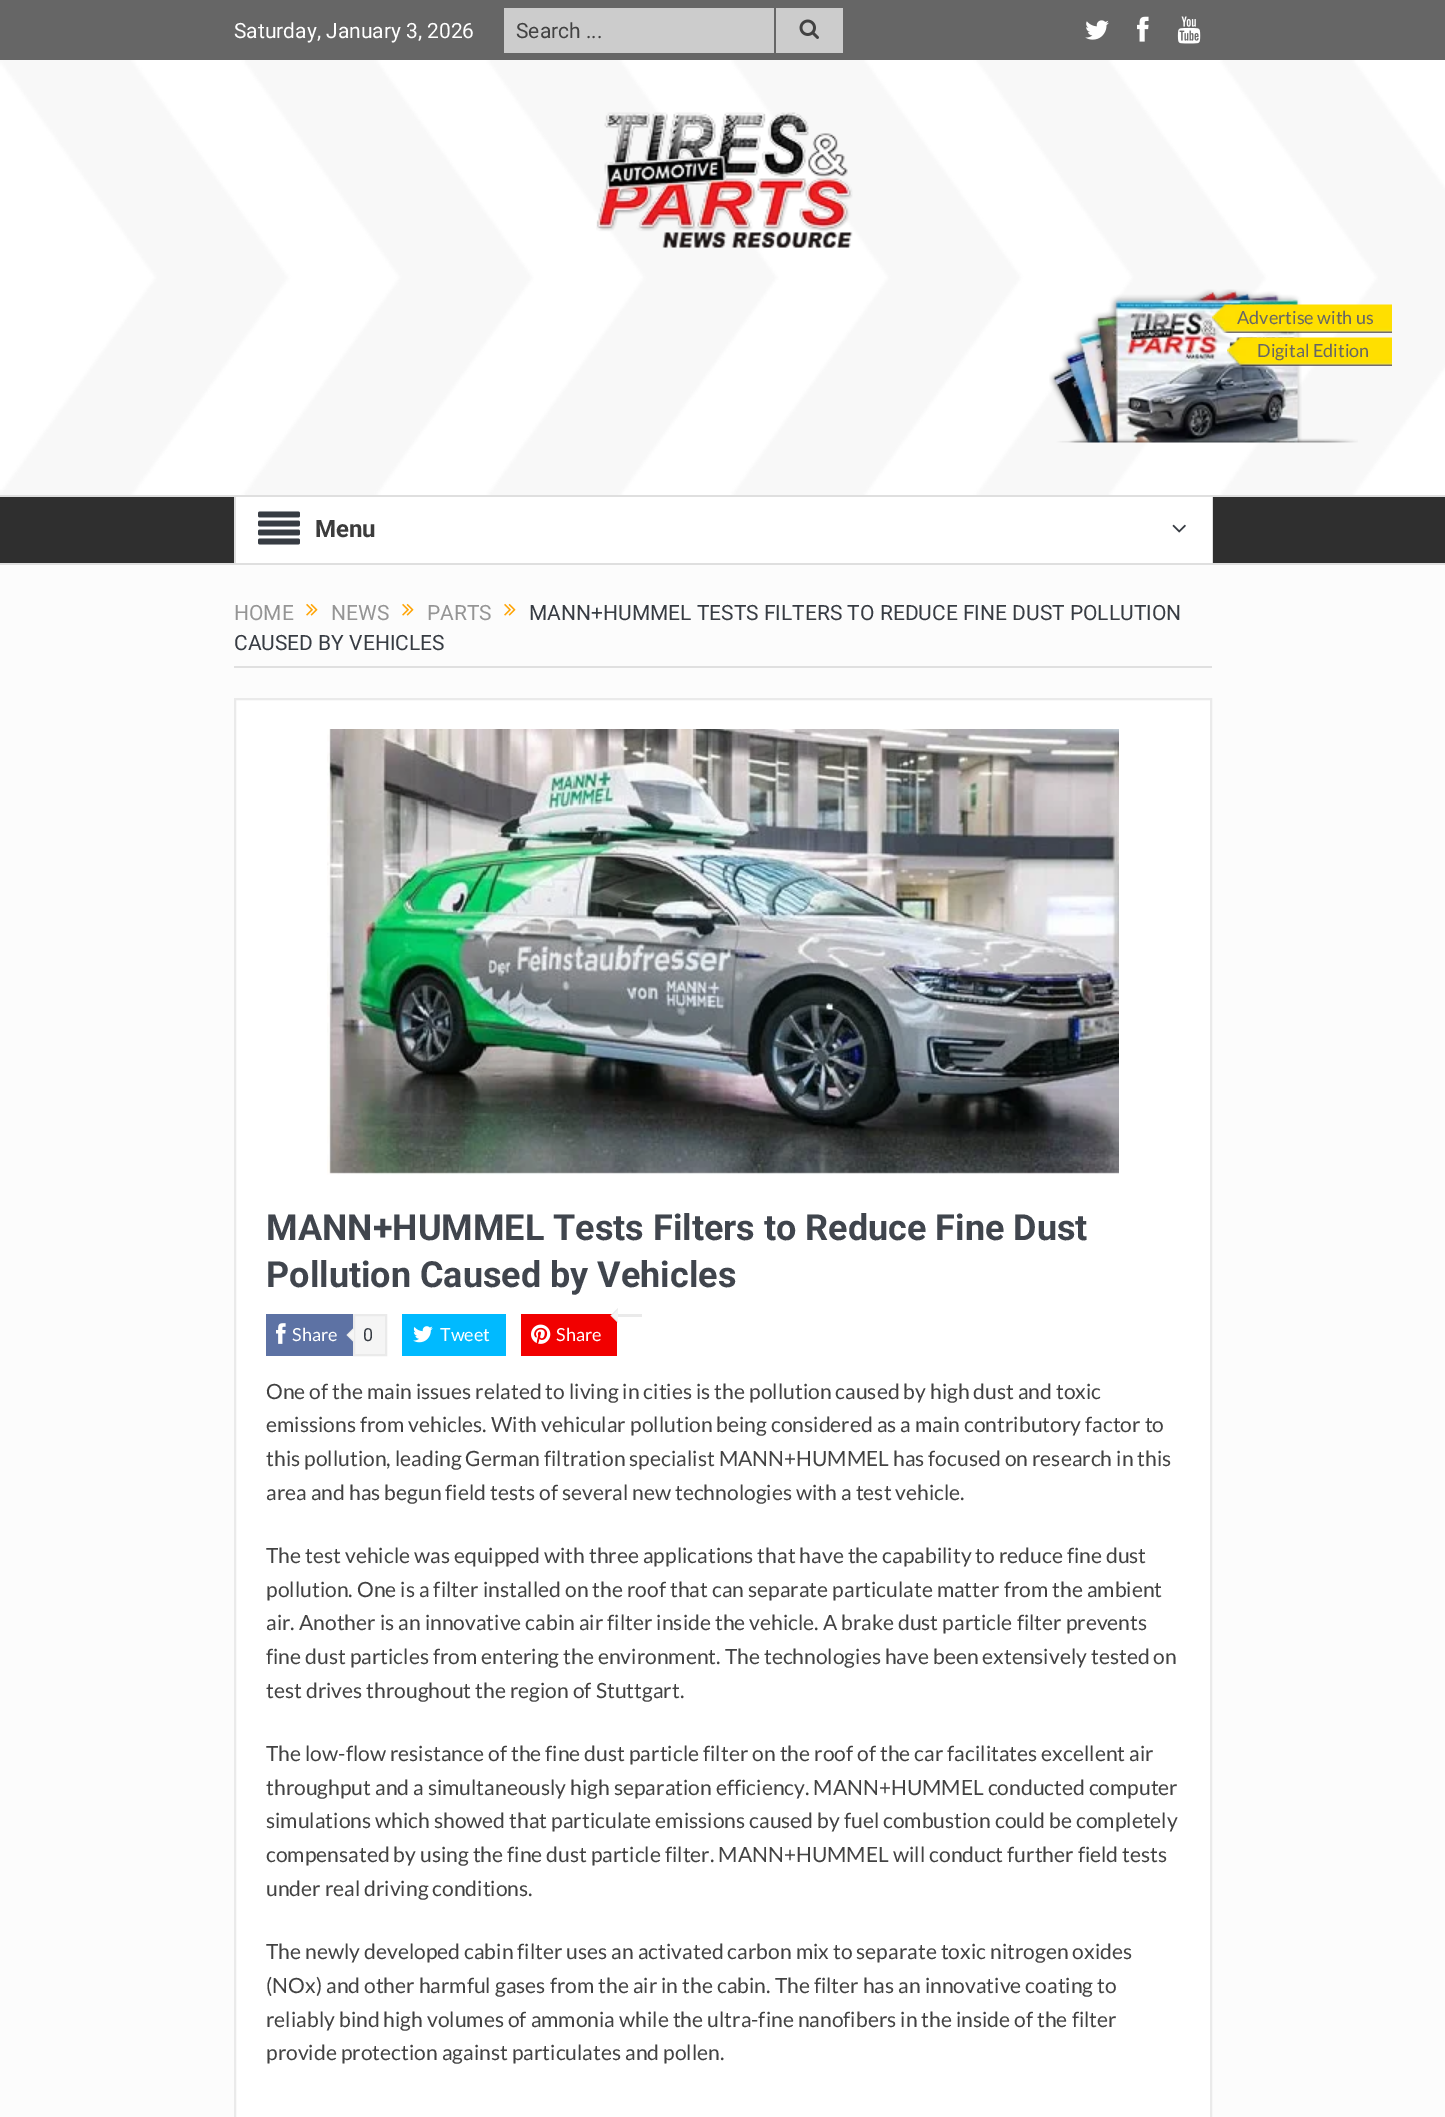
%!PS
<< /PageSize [1445 2117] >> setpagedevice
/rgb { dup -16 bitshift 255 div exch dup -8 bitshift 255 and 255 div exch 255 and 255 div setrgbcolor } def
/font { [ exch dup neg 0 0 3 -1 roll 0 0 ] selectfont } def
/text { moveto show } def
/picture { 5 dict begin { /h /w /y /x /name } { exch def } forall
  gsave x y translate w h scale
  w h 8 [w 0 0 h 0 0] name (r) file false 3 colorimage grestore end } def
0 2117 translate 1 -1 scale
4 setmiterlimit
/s1 { /Roboto-Regular 21 font 16#FFFFFF rgb } def
/s2 { /Roboto-Regular 21 font 16#424242 rgb } def
/s3 { /Lato-Regular 18 font 16#666666 rgb } def
/s4 { /Roboto-Bold 24 font 16#3C3C3C rgb } def
/s5 { /Roboto-Regular 21 font 16#959595 rgb } def
/s6 { /Roboto-Regular 21 font 16#373C43 rgb } def
/s7 { /Roboto-Bold 36 font 16#40454D rgb } def
/s8 { /Lato-Regular 18 font 16#FFFFFF rgb } def
/s9 { /Roboto-Regular 18 font 16#373C43 rgb } def
/s10 { /Lato-Regular 21 font 16#424242 rgb } def
16#FCFCFC rgb
0 0 1445 2117 rectfill
16#666666 rgb
0 0 1445 60 rectfill
s1
(Saturday, January 3, 2026) 234 38 text
16#CCCCCC rgb
504 8 270 45 rectfill
s2
(Search ...) 516 38 text
16#CCCCCC rgb
776 8 67 45 rectfill
(pic1.raw) 799 19 20 20 picture
(pic2.raw) 1085 20 24 20 picture
(pic3.raw) 1137 16 12 26 picture
(pic4.raw) 1177 16 24 28 picture
16#FFFFFF rgb
0 60 1445 435 rectfill
(pic5.raw) 0 60 1445 435 picture
(pic6.raw) 596 112 257 136 picture
(pic7.raw) 1049 289 309 154 picture
(pic8.raw) 1212 304 180 29 picture
s3
(Advertise with us) 1237 324 text
(pic9.raw) 1227 337 165 29 picture
(Digital Edition) 1257 357 text
16#DFDFDF rgb
0 495 1445 2 rectfill
16#2F2F2F rgb
0 497 1445 66 rectfill
16#DFDFDF rgb
0 563 1445 2 rectfill
16#FFFFFF rgb
236 497 976 66 rectfill
16#DFDFDF rgb
1212 497 1 66 rectfill
234 497 2 66 rectfill
(pic10.raw) 258 511 42 34 picture
s4
(Menu) 315 537 text
(pic11.raw) 1172 524 14 9 picture
16#E0E0E0 rgb
234 666 978 2 rectfill
s5
(HOME) 234 620 text
(pic12.raw) 306 603 12 13 picture
(NEWS) 331 620 text
(pic12.raw) 402 603 12 13 picture
(PARTS) 427 620 text
(pic12.raw) 504 603 12 13 picture
s6
(MANN+HUMMEL TESTS FILTERS TO REDUCE FINE DUST POLLUTION) 529 620 text
(CAUSED BY VEHICLES) 234 650 text
16#FFFFFF rgb
235 699 moveto 1211 699 lineto 1211 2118 lineto 235 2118 lineto closepath gsave fill grestore
16#EAEAEA rgb
2 setlinewidth
stroke
(pic13.raw) 327 729 792 446 picture
s7
(MANN+HUMMEL Tests Filters to Reduce Fine Dust) 266 1240 text
(Pollution Caused by Vehicles) 266 1287 text
16#5D72A4 rgb
266 1314 87 42 rectfill
(pic14.raw) 276 1323 10 21 picture
s8
(Share) 292 1341 text
16#F5F5F5 rgb
354 1315 moveto 386 1315 lineto 386 1355 lineto 354 1355 lineto closepath gsave fill grestore
16#EAEAEA rgb
stroke
354 1327.5 moveto 354 1342.5 lineto 346.5 1335 lineto closepath fill
s9
(0) 363 1341 text
16#F5F5F5 rgb
354 1329 moveto 354 1341 lineto 348 1335 lineto closepath fill
16#00BAFF rgb
402 1314 104 42 rectfill
(pic15.raw) 413 1326 20 17 picture
s8
(Tweet) 440 1341 text
16#EAEAEA rgb
617 1314 25 3 rectfill
16#F20000 rgb
521 1314 96 42 rectfill
16#EAEAEA rgb
618 1308 moveto 618 1323 lineto 610.5 1315.5 lineto closepath fill
16#F5F5F5 rgb
618 1309.5 moveto 618 1321.5 lineto 612 1315.5 lineto closepath fill
(pic16.raw) 531 1324 20 20 picture
s8
(Share) 556 1341 text
s10
(One of the main issues related to living in cities is the pollution caused by high dust and toxic) 266 1399 text
(emissions from vehicles. With vehicular pollution being considered as a main contributory factor to) 266 1432 text
(this pollution, leading German filtration specialist MANN+HUMMEL has focused on research in this) 266 1466 text
(area and has begun field tests of several new technologies with a test vehicle.) 266 1500 text
(The test vehicle was equipped with three applications that have the capability to reduce fine dust) 266 1563 text
(pollution. One is a filter installed on the roof that can separate particulate matter from the ambient) 266 1597 text
(air. Another is an innovative cabin air filter inside the vehicle. A brake dust particle filter prevents) 266 1630 text
(fine dust particles from entering the environment. The technologies have been extensively tested on) 266 1664 text
(test drives throughout the region of Stuttgart.) 266 1698 text
(The low-flow resistance of the fine dust particle filter on the roof of the car facilitates excellent air) 266 1761 text
(throughput and a simultaneously high separation efficiency. MANN+HUMMEL conducted computer) 266 1795 text
(simulations which showed that particulate emissions caused by fuel combustion could be completely) 266 1828 text
(compensated by using the fine dust particle filter. MANN+HUMMEL will conduct further field tests) 266 1862 text
(under real driving conditions.) 266 1896 text
(The newly developed cabin filter uses an activated carbon mix to separate toxic nitrogen oxides) 266 1959 text
(\(NOx\) and other harmful gases from the air in the cabin. The filter has an innovative coating to) 266 1993 text
(reliably bind high volumes of ammonia while the ultra-fine nanofibers in the inside of the filter) 266 2027 text
(provide protection against particulates and pollen.) 266 2060 text
showpage
